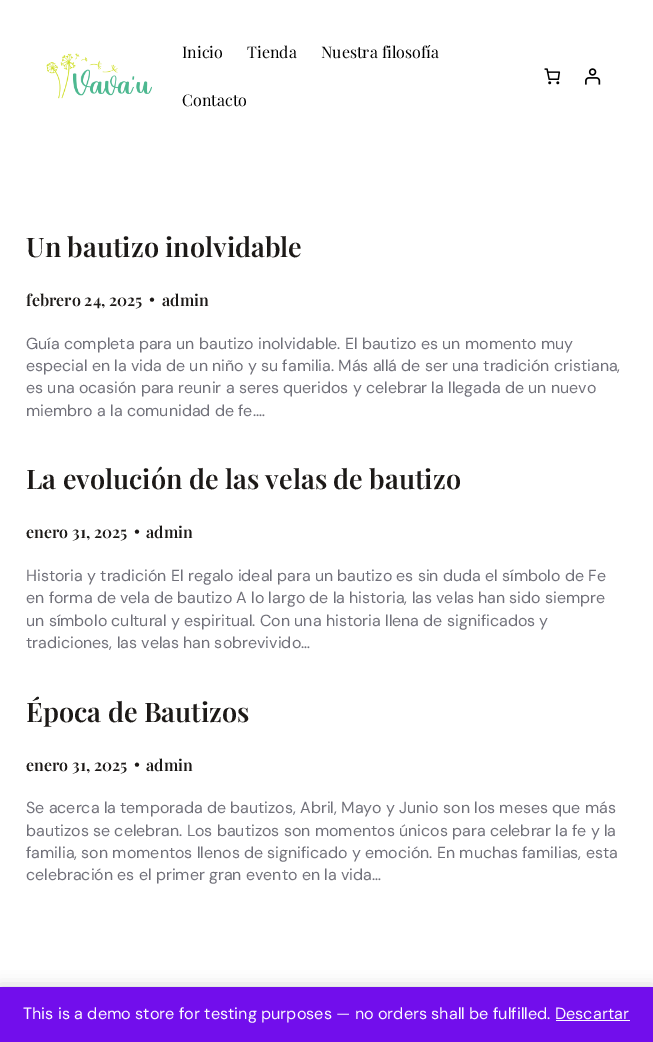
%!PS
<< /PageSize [653 1042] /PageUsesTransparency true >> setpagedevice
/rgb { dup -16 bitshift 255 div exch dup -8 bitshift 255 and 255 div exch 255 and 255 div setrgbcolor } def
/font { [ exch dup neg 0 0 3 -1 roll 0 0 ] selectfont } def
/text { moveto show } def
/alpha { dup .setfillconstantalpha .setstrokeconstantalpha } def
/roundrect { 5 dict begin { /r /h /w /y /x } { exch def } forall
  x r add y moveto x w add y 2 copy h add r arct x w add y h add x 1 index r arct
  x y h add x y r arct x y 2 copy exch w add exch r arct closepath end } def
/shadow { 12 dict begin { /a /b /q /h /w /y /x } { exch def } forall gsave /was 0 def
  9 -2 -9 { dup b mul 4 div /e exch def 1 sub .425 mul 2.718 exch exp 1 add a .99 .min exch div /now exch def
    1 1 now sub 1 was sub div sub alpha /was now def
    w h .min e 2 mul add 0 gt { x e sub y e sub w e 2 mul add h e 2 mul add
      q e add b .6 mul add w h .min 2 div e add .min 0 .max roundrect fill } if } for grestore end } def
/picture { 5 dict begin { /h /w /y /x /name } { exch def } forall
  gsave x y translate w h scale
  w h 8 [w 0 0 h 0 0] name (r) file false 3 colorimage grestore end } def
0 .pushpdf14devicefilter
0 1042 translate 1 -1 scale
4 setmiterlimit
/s1 { /PlayfairDisplay-Regular 16 font 16#000000 rgb } def
/s2 { /PlayfairDisplay-SemiBold 27 font 16#1C1917 rgb } def
/s3 { /PlayfairDisplay-SemiBold 16 font 16#1C1917 rgb } def
/s4 { /DMSans-SemiBold 16 font 16#1C1917 rgb } def
/s5 { /DMSans-Regular 16 font 16#71717A rgb } def
/s6 { /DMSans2-Regular 16.25 font 16#FCFBFE rgb } def
16#FFFFFF rgb
0 0 653 1042 rectfill
(pic1.raw) 46 53 106 46 picture
s1
(Inicio) 182 58 text
(Tienda) 247 58 text
(Nuestra filosofía) 321 58 text
(Contacto) 182 106 text
(pic2.raw) 544 68 17 17 picture
(pic3.raw) 585 68 16 17 picture
s2
(Un bautizo inolvidable) 26 257 text
s3
(febrero 24, 2025) 26 306 text
s4
(•) 149 305 text
s3
(admin) 162 306 text
s5
(Guía completa para un bautizo inolvidable. El bautizo es un momento muy) 26 349 text
(especial en la vida de un niño y su familia. Más allá de ser una tradición cristiana,) 26 371 text
(es una ocasión para reunir a seres queridos y celebrar la llegada de un nuevo) 26 393 text
(miembro a la comunidad de fe.…) 26 416 text
s2
(La evolución de las velas de bautizo) 26 489 text
s3
(enero 31, 2025) 26 538 text
s4
(•) 134 537 text
s3
(admin) 146 538 text
s5
(Historia y tradición El regalo ideal para un bautizo es sin duda el símbolo de Fe) 26 581 text
(en forma de vela de bautizo A lo largo de la historia, las velas han sido siempre) 26 603 text
(un símbolo cultural y espiritual. Con una historia llena de significados y) 26 626 text
(tradiciones, las velas han sobrevivido…) 26 648 text
s2
(Época de Bautizos) 26 722 text
s3
(enero 31, 2025) 26 771 text
s4
(•) 134 770 text
s3
(admin) 146 771 text
s5
(Se acerca la temporada de bautizos, Abril, Mayo y Junio son los meses que más) 26 813 text
(bautizos se celebran. Los bautizos son momentos únicos para celebrar la fe y la) 26 836 text
(familia, son momentos llenos de significado y emoción. En muchas familias, esta) 26 858 text
(celebración es el primer gran evento en la vida…) 26 880 text
16#000000 rgb
0 988 653 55 0 8 0.2 shadow
16#720EEC rgb
0 987 653 55 rectfill
s6
(This is a demo store for testing purposes — no orders shall be fulfilled. Descartar) 23 1019 text
556 1020 74 1 rectfill
.poppdf14devicefilter showpage
